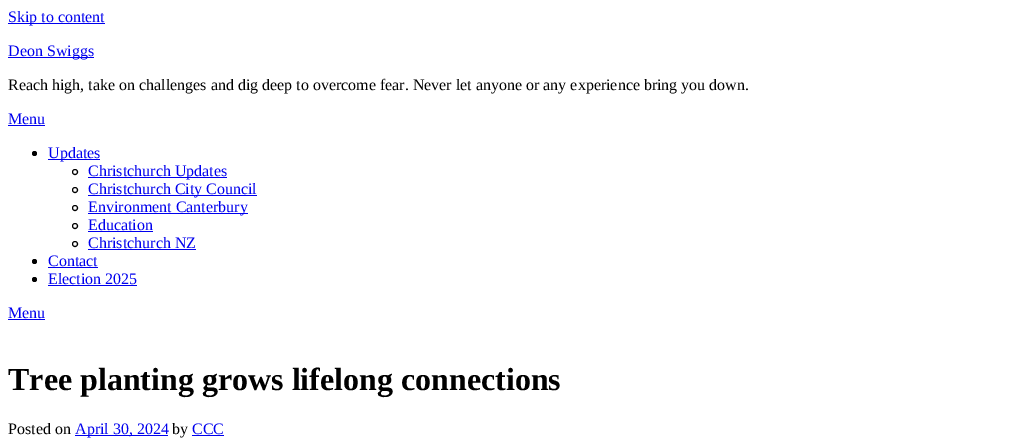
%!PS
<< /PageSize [1016 448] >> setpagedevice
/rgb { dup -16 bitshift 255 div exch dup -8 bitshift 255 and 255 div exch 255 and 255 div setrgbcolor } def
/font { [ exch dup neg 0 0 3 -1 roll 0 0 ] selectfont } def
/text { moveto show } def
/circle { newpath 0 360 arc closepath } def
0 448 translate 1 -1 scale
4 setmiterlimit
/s1 { /LiberationSerif-Regular 16 font 16#0000EE rgb } def
/s2 { /LiberationSerif-Regular 16 font 16#000000 rgb } def
/s3 { /LiberationSerif-Bold 32 font 16#000000 rgb } def
16#FFFFFF rgb
0 0 1016 448 rectfill
16#0000EE rgb
8 23 97 1 rectfill
s1
(Skip to content) 8 22 text
8 57 86 1 rectfill
(Deon Swiggs) 8 56 text
s2
(Reach high, take on challenges and dig deep to overcome fear. Never let anyone or any experience bring you down.) 8 90 text
s1
(Menu) 8 124 text
8 125 37 1 rectfill
16#000000 rgb
34.5 153.5 2.5 circle fill
16#0000EE rgb
48 159 52 1 rectfill
(Updates) 48 158 text
16#000000 rgb
75 172 2.5 circle stroke
16#0000EE rgb
88 177 139 1 rectfill
(Christchurch Updates) 88 176 text
16#000000 rgb
75 190 2.5 circle stroke
16#0000EE rgb
88 195 169 1 rectfill
(Christchurch City Council) 88 194 text
16#000000 rgb
75 208 2.5 circle stroke
16#0000EE rgb
88 213 160 1 rectfill
(Environment Canterbury) 88 212 text
16#000000 rgb
75 226 2.5 circle stroke
s1
(Education) 88 230 text
88 231 65 1 rectfill
16#000000 rgb
75 244 2.5 circle stroke
s1
(Christchurch NZ) 88 248 text
88 249 108 1 rectfill
16#000000 rgb
34.5 261.5 2.5 circle fill
s1
(Contact) 48 266 text
48 267 50 1 rectfill
16#000000 rgb
34.5 279.5 2.5 circle fill
s1
(Election 2025) 48 284 text
48 285 89 1 rectfill
(Menu) 8 318 text
8 319 37 1 rectfill
s3
(Tree planting grows lifelong connections) 8 390 text
s2
(Posted on) 8 434 text
16#0000EE rgb
75 435 93 1 rectfill
(April 30, 2024) 75 434 text
s2
(by) 172 434 text
s1
(CCC) 192 434 text
192 435 32 1 rectfill
showpage
